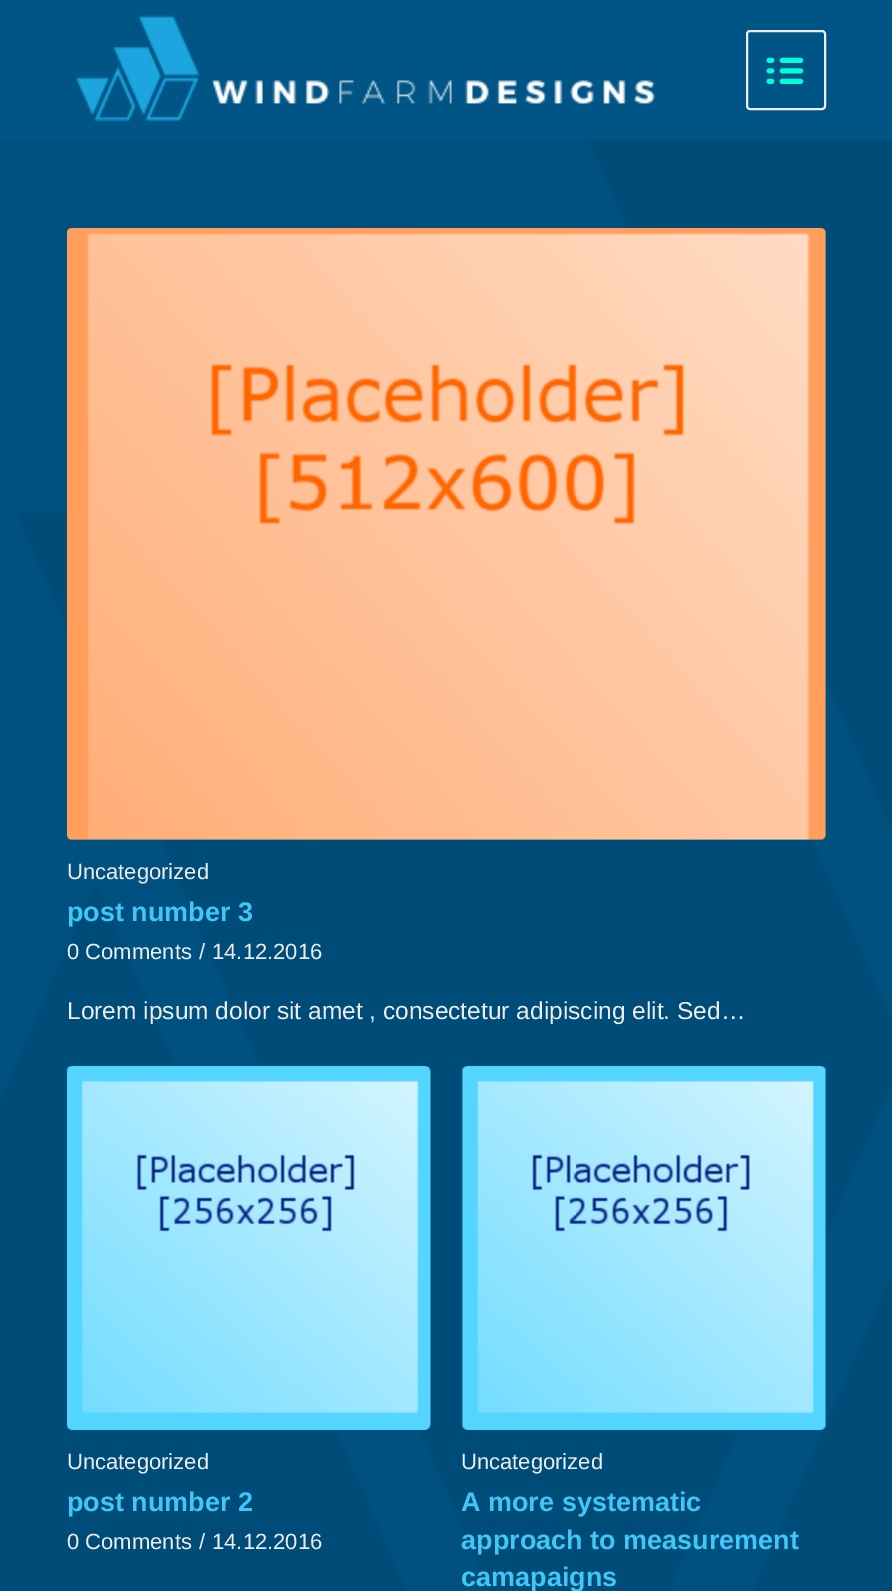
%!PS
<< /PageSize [892 1591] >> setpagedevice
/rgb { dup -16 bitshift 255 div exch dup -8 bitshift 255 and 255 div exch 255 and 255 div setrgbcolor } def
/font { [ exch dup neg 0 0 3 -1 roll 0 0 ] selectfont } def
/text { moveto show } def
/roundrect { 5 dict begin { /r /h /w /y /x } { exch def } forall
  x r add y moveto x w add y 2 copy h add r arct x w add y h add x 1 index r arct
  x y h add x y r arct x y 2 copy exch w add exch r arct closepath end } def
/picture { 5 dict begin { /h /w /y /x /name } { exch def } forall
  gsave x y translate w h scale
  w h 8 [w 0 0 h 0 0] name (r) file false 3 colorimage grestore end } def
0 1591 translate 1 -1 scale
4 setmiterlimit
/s1 { /LiberationSans-Regular 22 font 16#EDEDED rgb } def
/s2 { /LiberationSans-Bold 27 font 16#40C6F7 rgb } def
/s3 { /LiberationSans-Regular 24.5 font 16#EDEDED rgb } def
16#FFFFFF rgb
0 0 892 1591 rectfill
16#005586 rgb
0 0 892 140 rectfill
(pic1.raw) 75 15 580 107 picture
16#EDEDED rgb
2 setlinewidth
747 31 78 78 3 roundrect stroke
(pic2.raw) 766 57 38 27 picture
(pic3.raw) 0 140 892 1451 picture
16#064E75 rgb
67 228 759 612 5 roundrect fill
(pic4.raw) 67 228 759 612 picture
s1
(Uncategorized) 67 879 text
s2
(post number 3) 67 921 text
s1
(0 Comments) 67 959 text
(/) 199 959 text
(14.12.2016) 212 959 text
s3
(Lorem ipsum dolor sit amet , consectetur adipiscing elit. Sed…) 67 1019 text
16#064E75 rgb
67 1066 364 364 5 roundrect fill
(pic5.raw) 67 1066 364 364 picture
s1
(Uncategorized) 67 1469 text
s2
(post number 2) 67 1511 text
s1
(0 Comments) 67 1549 text
(/) 199 1549 text
(14.12.2016) 212 1549 text
16#064E75 rgb
462 1066 364 364 5 roundrect fill
(pic6.raw) 461 1066 365 364 picture
s1
(Uncategorized) 461 1469 text
s2
(A more systematic) 461 1511 text
(approach to measurement) 461 1549 text
(camapaigns) 461 1586 text
showpage
